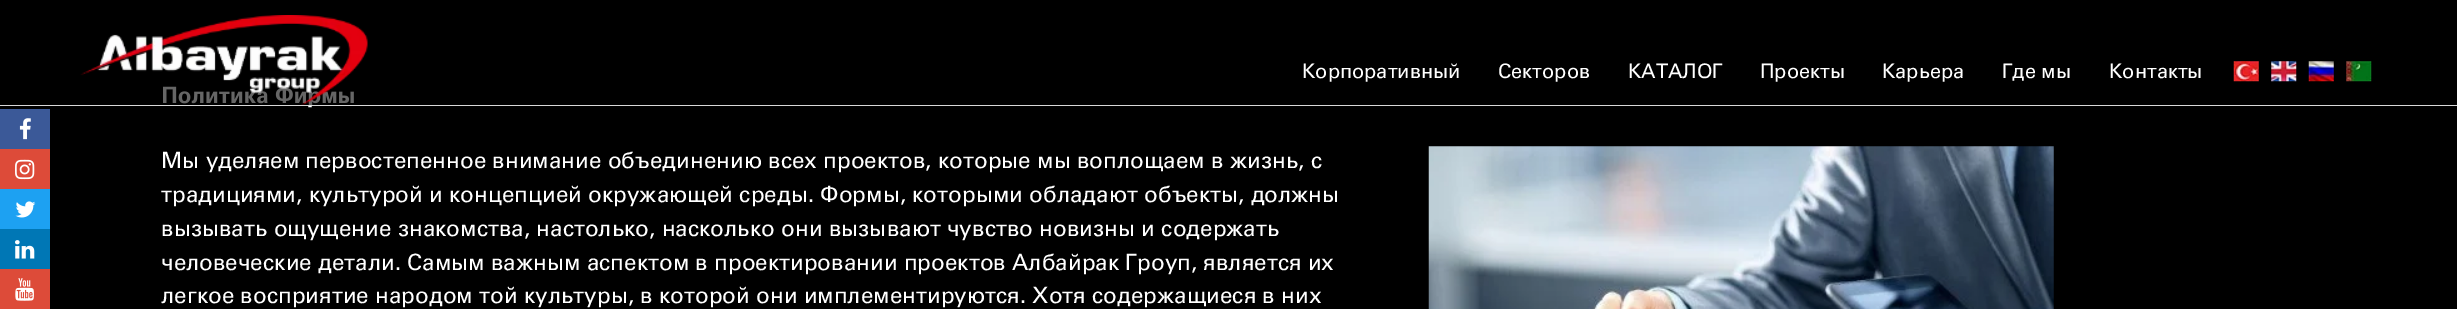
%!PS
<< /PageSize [2457 309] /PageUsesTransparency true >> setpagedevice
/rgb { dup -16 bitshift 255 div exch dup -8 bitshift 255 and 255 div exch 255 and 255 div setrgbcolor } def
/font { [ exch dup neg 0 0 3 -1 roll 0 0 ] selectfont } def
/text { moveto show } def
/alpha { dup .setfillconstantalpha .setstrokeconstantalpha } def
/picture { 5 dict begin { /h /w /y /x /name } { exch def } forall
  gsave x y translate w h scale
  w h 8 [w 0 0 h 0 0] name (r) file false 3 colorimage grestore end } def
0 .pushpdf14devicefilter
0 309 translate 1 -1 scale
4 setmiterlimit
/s1 { /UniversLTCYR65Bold-Regular 22.5 font 16#FFFFFF rgb } def
/s2 { /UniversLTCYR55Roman-Regular 20 font 16#FFFFFF rgb } def
/s3 { /UniversLTCYR55Roman-Regular 22.5 font 16#FFFFFF rgb } def
16#000000 rgb
0 0 2457 309 rectfill
16#3B5998 rgb
0 109 50 40 rectfill
(pic1.raw) 19 118 12 22 picture
16#DD4B39 rgb
0 149 50 40 rectfill
(pic2.raw) 15 159 20 21 picture
16#1DA1F2 rgb
0 189 50 40 rectfill
(pic3.raw) 15 201 21 17 picture
16#0077B5 rgb
0 229 50 40 rectfill
(pic4.raw) 15 240 20 19 picture
16#DD4B39 rgb
0 269 50 40 rectfill
(pic5.raw) 15 278 19 23 picture
s1
(Политика Фирмы) 161 103 text
0.6 alpha
16#000000 rgb
163 86 191 19 rectfill
1 alpha
(pic6.raw) 80 15 288 90 picture
s2
(Корпоративный) 1302 78 text
(Секторов) 1498 78 text
(КАТАЛОГ) 1628 78 text
(Проекты) 1760 78 text
(Карьера) 1882 78 text
(Где мы) 2002 78 text
(Контакты) 2109 78 text
(pic7.raw) 2233 61 26 21 picture
(pic8.raw) 2271 61 26 21 picture
(pic9.raw) 2308 61 26 21 picture
(pic10.raw) 2346 61 26 21 picture
16#D8D8D8 rgb
0 105 2457 1 rectfill
s3
(Мы уделяем первостепенное внимание объединению всех проектов, которые мы воплощаем в жизнь, с) 161 168 text
(традициями, культурой и концепцией окружающей среды. Формы, которыми обладают объекты, должны) 161 202 text
(вызывать ощущение знакомства, настолько, насколько они вызывают чувство новизны и содержать) 161 236 text
(человеческие детали. Самым важным аспектом в проектировании проектов Албайрак Гроуп, является их) 161 270 text
(легкое восприятие народом той культуры, в которой они имплементируются. Хотя содержащиеся в них) 161 303 text
(pic11.raw) 1428 146 626 163 picture
.poppdf14devicefilter showpage
